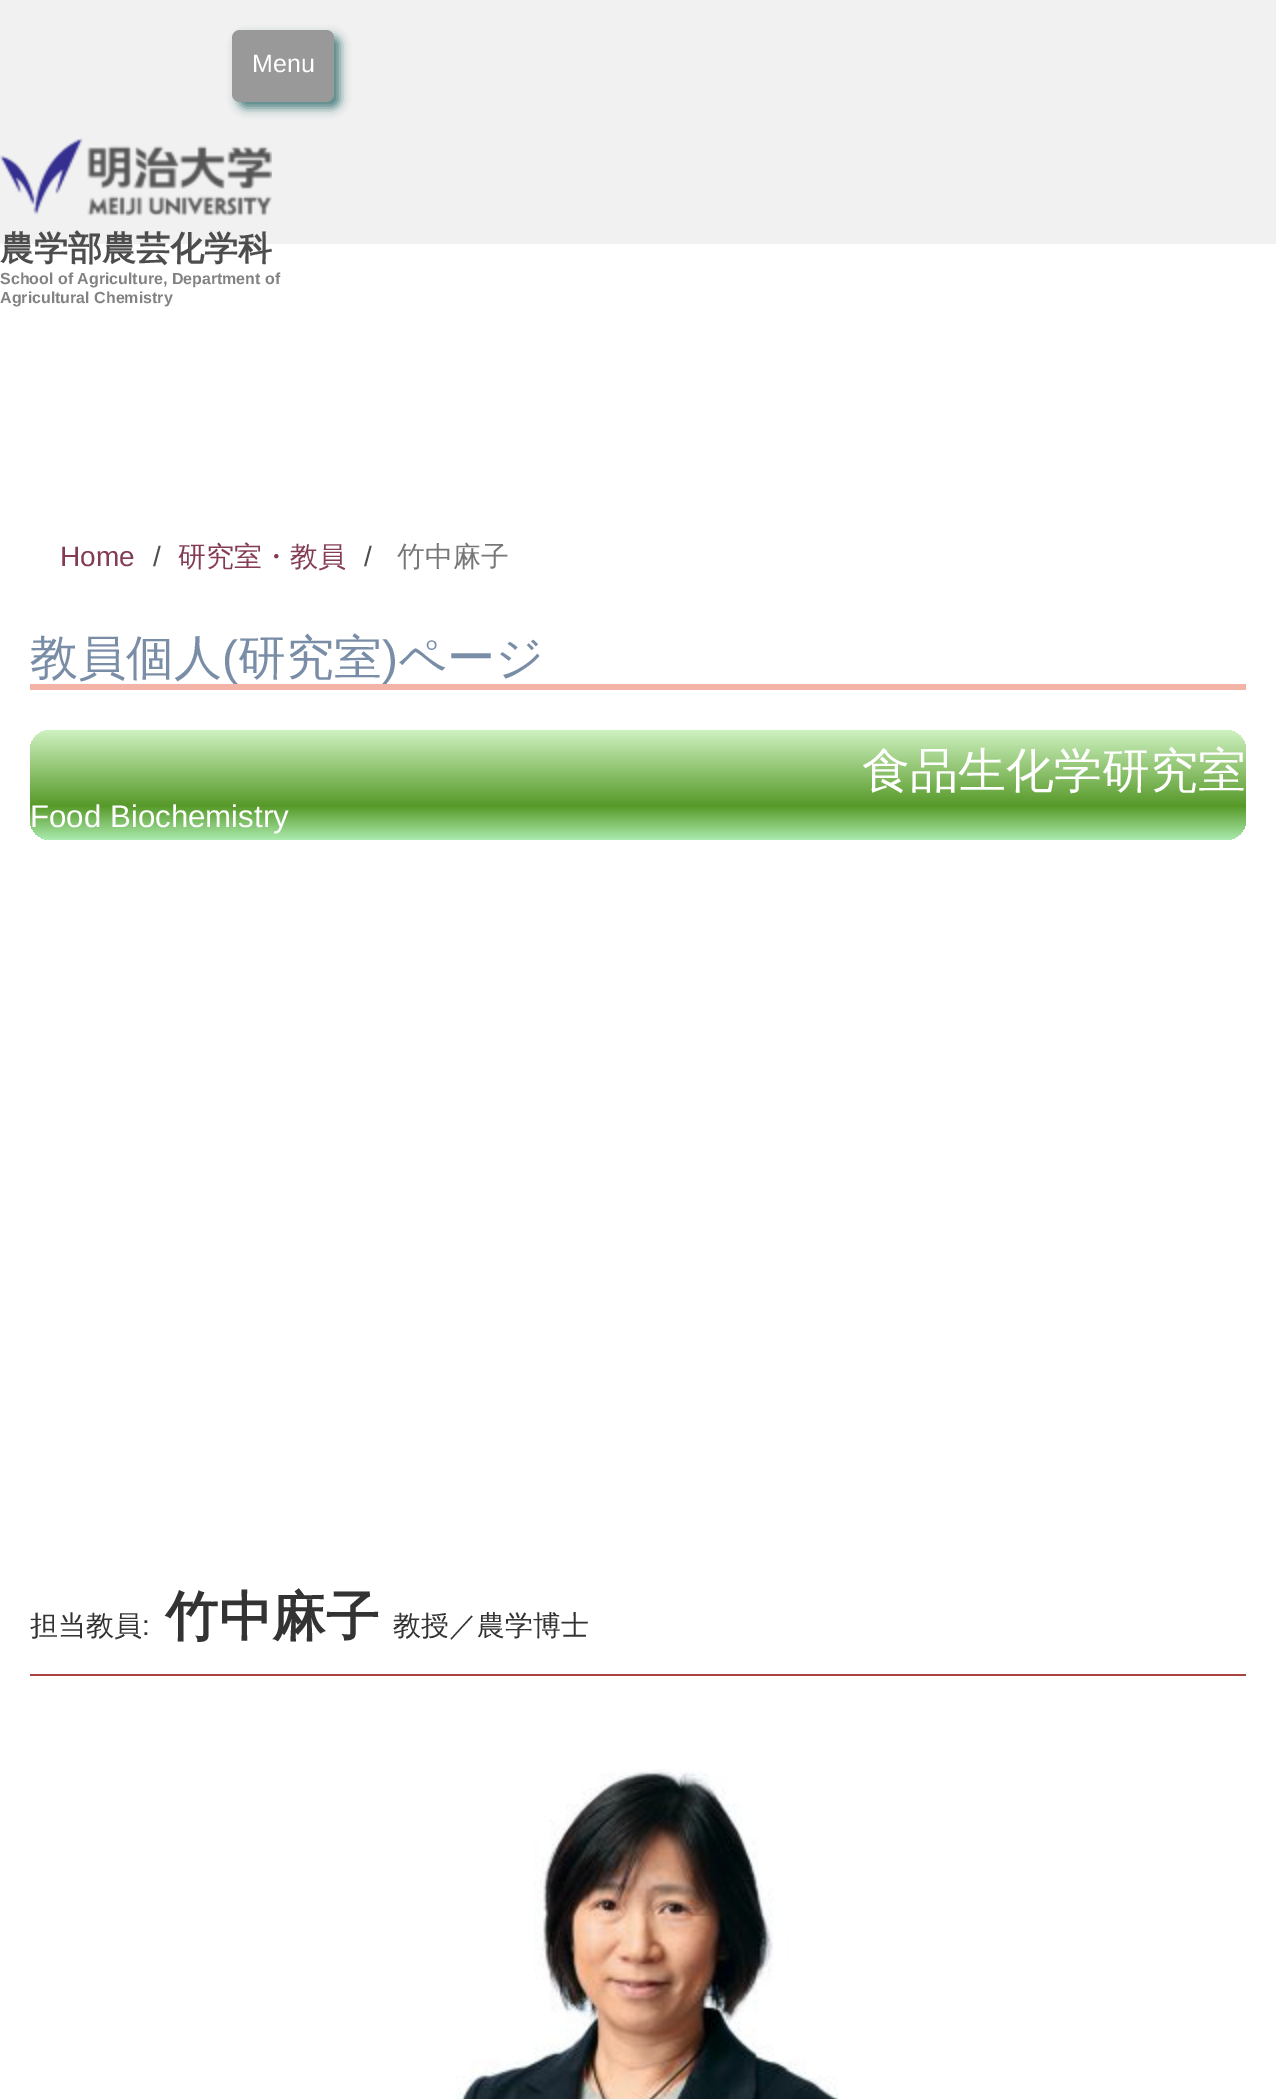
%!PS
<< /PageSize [1276 2099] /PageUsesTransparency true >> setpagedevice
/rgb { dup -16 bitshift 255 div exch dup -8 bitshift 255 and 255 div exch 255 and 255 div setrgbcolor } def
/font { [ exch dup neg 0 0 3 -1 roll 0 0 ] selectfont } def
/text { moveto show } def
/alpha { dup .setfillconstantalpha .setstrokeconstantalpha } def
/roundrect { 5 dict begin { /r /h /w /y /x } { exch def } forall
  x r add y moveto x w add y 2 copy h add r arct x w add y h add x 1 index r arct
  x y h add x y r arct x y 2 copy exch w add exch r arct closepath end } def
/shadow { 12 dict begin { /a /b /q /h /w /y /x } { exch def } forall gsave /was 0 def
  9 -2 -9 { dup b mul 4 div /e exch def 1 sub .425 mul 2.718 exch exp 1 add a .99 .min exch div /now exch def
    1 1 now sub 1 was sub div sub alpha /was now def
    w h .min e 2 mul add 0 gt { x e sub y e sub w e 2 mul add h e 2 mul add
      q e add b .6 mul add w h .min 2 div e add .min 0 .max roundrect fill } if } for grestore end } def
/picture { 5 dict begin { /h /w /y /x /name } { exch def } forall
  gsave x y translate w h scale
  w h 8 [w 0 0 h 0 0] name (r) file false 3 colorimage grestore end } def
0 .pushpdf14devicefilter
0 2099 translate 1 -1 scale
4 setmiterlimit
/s1 { /LiberationSans-Regular 25 font 16#FFFFFF rgb } def
/s2 { /WenQuanYiZenHei-Bold 34 font 16#4D4D4D rgb } def
/s3 { /LiberationSans-Bold 16 font 16#828282 rgb } def
/s4 { /LiberationSans-Regular 28 font 16#843C54 rgb } def
/s5 { /LiberationSans-Regular 28 font 16#4D4D4D rgb } def
/s6 { /WenQuanYiZenHei-Medium 28 font 16#843C54 rgb } def
/s7 { /WenQuanYiZenHei-Medium 28 font 16#777777 rgb } def
/s8 { /WenQuanYiZenHei-Medium 48 font 16#798DA6 rgb } def
/s9 { /LiberationSans-Regular 48 font 16#798DA6 rgb } def
/s10 { /WenQuanYiZenHei-Medium 48 font 16#FFFFFF rgb } def
/s11 { /LiberationSans-Regular 31.25 font 16#FFFFFF rgb } def
/s12 { /WenQuanYiZenHei-Medium 28 font 16#333333 rgb } def
/s13 { /LiberationSans-Regular 28 font 16#333333 rgb } def
/s14 { /WenQuanYiZenHei-Bold 53.5 font 16#333333 rgb } def
16#FFFFFF rgb
0 0 1276 2099 rectfill
16#F1F1F1 rgb
0 0 1276 244 rectfill
16#4B7F80 rgb
238 36 102 72 8 5 1 shadow
16#999999 rgb
232 30 102 72 8 roundrect fill
s1
(Menu) 252 72 text
(pic1.raw) 0 138 272 78 picture
s2
(農学部農芸化学科) 0 260 text
s3
(School of Agriculture, Department of) 0 284 text
(Agricultural Chemistry) 0 303 text
s4
(Home) 60 566 text
s5
(/) 153 566 text
s6
(研究室・教員) 178 566 text
s5
(/) 364 566 text
s7
(竹中麻子) 397 566 text
16#F3B3A6 rgb
30 684 1216 6 rectfill
s8
(教員個人) 30 674 text
s9
(\() 222 674 text
s8
(研究室) 238 674 text
s9
(\)) 382 674 text
s8
(ページ) 398 674 text
gsave 30 730 1216 110 20 roundrect clip newpath
<< /ShadingType 2 /ColorSpace /DeviceRGB /Coords [638 730 638 840] /Extend [true true] /Function << /FunctionType 3 /Domain [0 1] /Functions [<< /FunctionType 2 /Domain [0 1] /C0 [0.812 0.949 0.761] /C1 [0.341 0.6 0.157] /N 1 >> << /FunctionType 2 /Domain [0 1] /C0 [0.341 0.6 0.157] /C1 [0.671 0.922 0.686] /N 1 >>] /Bounds [0.69] /Encode [0 1 0 1] >> >> shfill grestore
s10
(食品生化学研究室) 862 787 text
s11
(Food Biochemistry) 30 827 text
16#A94442 rgb
30 1674 1216 2 rectfill
s12
(担当教員) 30 1635 text
s13
(:) 142 1635 text
s14
(竹中麻子) 165 1635 text
s12
(教授／農学博士) 393 1635 text
(pic2.raw) 456 1769 382 330 picture
.poppdf14devicefilter showpage
